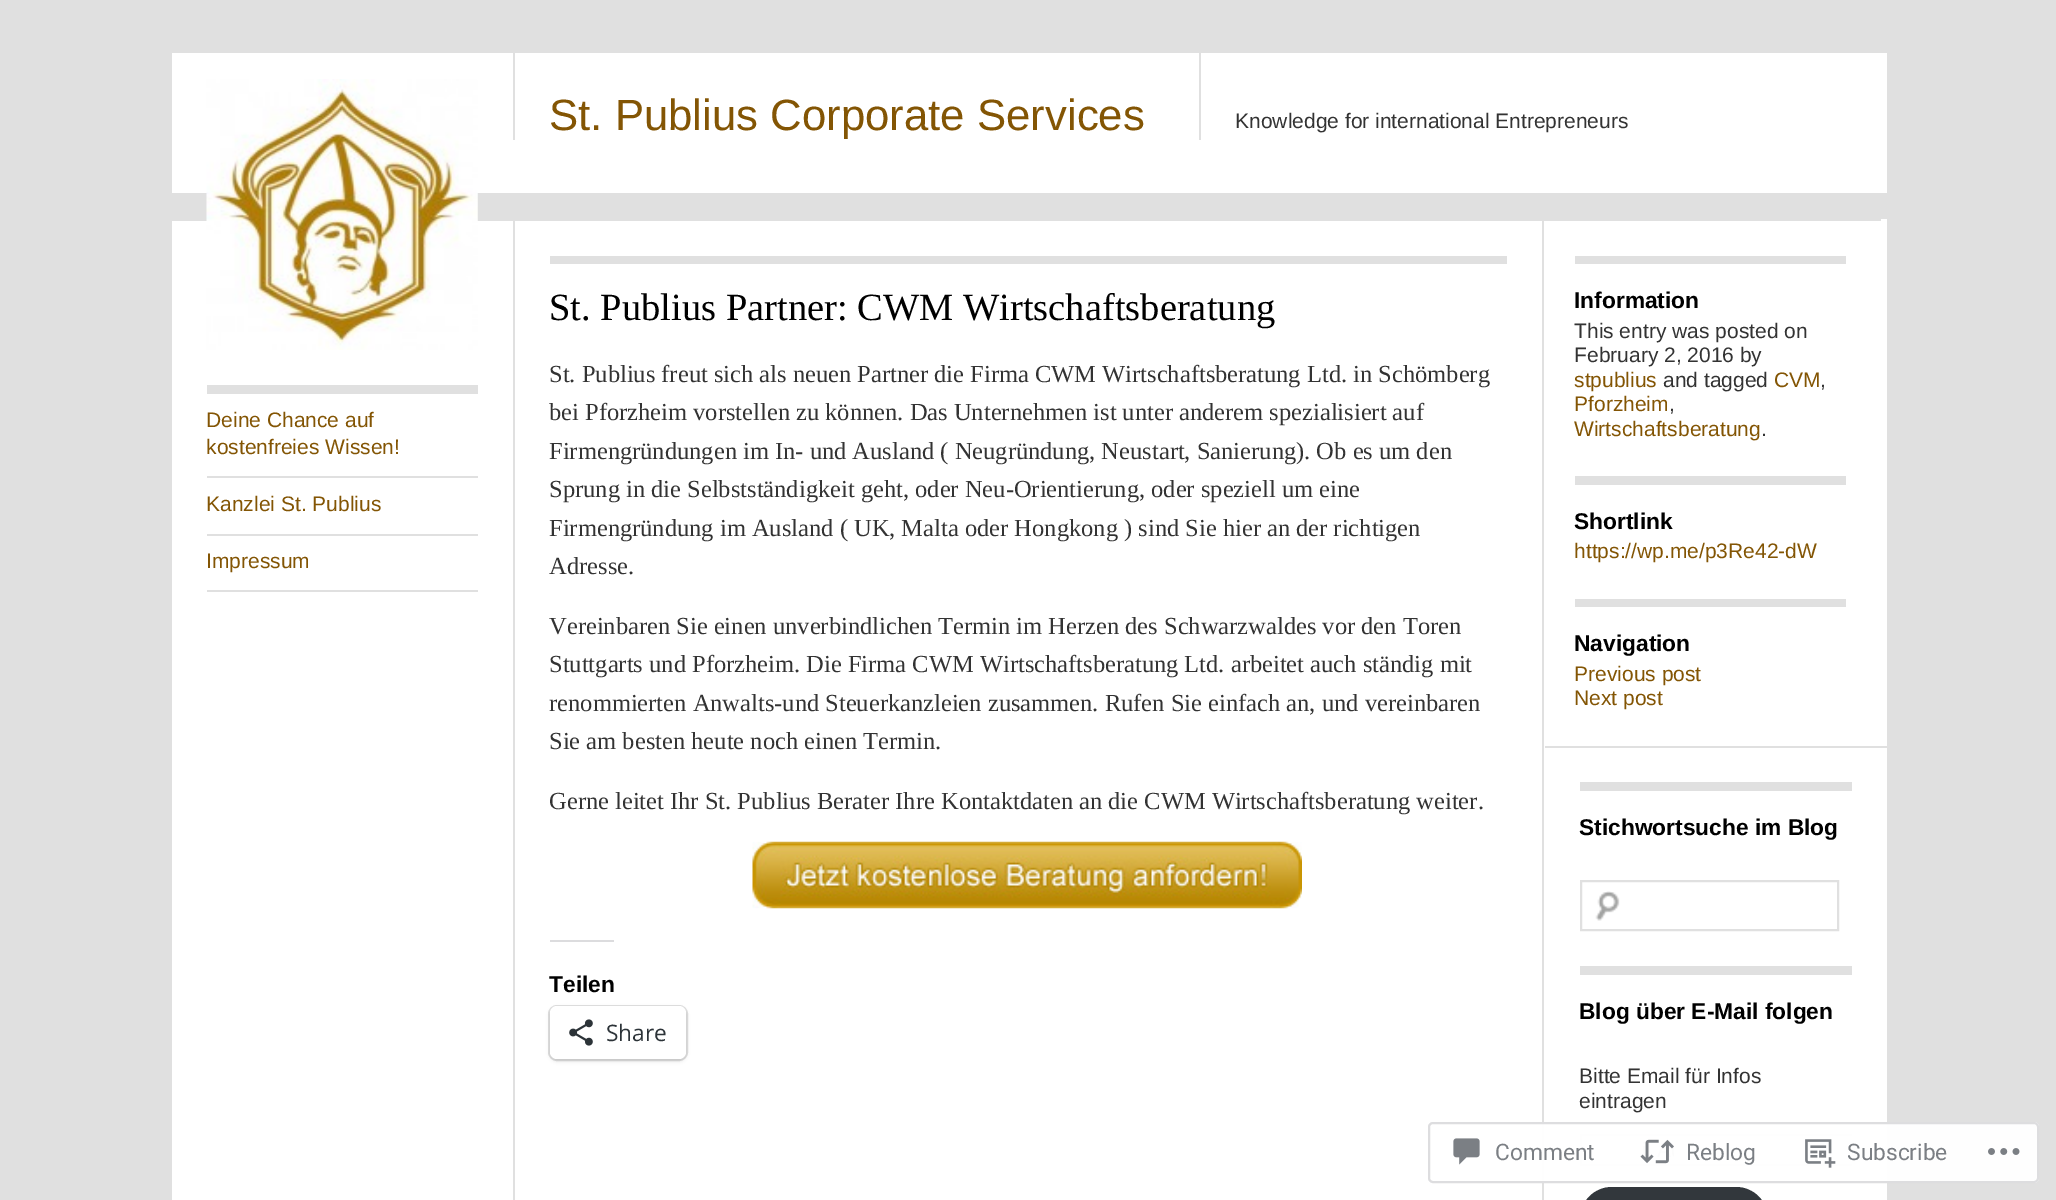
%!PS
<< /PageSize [2056 1200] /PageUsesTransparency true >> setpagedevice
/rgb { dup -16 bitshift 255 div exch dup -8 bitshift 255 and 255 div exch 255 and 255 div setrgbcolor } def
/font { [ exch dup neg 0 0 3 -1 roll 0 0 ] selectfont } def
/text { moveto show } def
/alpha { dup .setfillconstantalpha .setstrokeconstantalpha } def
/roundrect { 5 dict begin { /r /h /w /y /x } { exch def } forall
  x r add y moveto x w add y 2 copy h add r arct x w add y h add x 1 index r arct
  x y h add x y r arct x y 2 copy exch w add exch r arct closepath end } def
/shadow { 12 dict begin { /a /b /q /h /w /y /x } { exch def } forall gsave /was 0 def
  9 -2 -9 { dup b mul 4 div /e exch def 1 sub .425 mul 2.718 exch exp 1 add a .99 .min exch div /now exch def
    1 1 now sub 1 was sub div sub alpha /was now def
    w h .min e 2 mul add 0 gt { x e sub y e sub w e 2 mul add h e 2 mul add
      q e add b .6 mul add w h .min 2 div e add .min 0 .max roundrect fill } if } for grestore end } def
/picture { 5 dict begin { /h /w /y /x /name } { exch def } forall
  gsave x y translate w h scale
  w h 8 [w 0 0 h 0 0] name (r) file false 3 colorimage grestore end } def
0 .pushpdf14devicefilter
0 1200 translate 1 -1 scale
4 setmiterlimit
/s1 { /LiberationSans-Regular 43.75 font 16#835504 rgb } def
/s2 { /LiberationSans-Regular 21 font 16#333333 rgb } def
/s3 { /LiberationSans-Regular 21 font 16#835504 rgb } def
/s4 { /LiberationSerif-Regular 38.5 font 16#000000 rgb } def
/s5 { /LiberationSerif-Regular 24.5 font 16#333333 rgb } def
/s6 { /LiberationSans-Bold 22.75 font 16#000000 rgb } def
/s7 { /OpenSans-Regular 22.75 font 16#2C3338 rgb } def
/s8 { /Roboto-Regular 22.75 font 16#7B7F84 rgb } def
16#E0E0E0 rgb
0 0 2056 1200 rectfill
16#FFFFFF rgb
172 53 1715 140 rectfill
172 219 1715 981 rectfill
16#E0E0E0 rgb
172 219 1372 2 rectfill
(pic1.raw) 206 79 272 271 picture
513 53 2 87 rectfill
s1
(St. Publius Corporate Services) 549 130 text
16#E0E0E0 rgb
1199 53 2 87 rectfill
s2
(Knowledge for international Entrepreneurs) 1235 128 text
16#E0E0E0 rgb
207 385 271 9 rectfill
207 476 271 2 rectfill
s3
(Deine Chance auf) 206 427 text
(kostenfreies Wissen!) 206 454 text
16#E0E0E0 rgb
207 534 271 2 rectfill
s3
(Kanzlei St. Publius) 206 511 text
16#E0E0E0 rgb
207 590 271 2 rectfill
s3
(Impressum) 206 568 text
16#E0E0E0 rgb
1542 219 2 981 rectfill
513 219 2 981 rectfill
550 256 957 8 rectfill
s4
(St. Publius Partner: CWM Wirtschaftsberatung) 549 320 text
s5
(St. Publius freut sich als neuen Partner die Firma CWM Wirtschaftsberatung Ltd. in Schömberg) 549 382 text
(bei Pforzheim vorstellen zu können. Das Unternehmen ist unter anderem spezialisiert auf) 549 420 text
(Firmengründungen im In- und Ausland \( Neugründung, Neustart, Sanierung\). Ob es um den) 549 459 text
(Sprung in die Selbstständigkeit geht, oder Neu-Orientierung, oder speziell um eine) 549 497 text
(Firmengründung im Ausland \( UK, Malta oder Hongkong \) sind Sie hier an der richtigen) 549 536 text
(Adresse.) 549 574 text
(Vereinbaren Sie einen unverbindlichen Termin im Herzen des Schwarzwaldes vor den Toren) 549 634 text
(Stuttgarts und Pforzheim. Die Firma CWM Wirtschaftsberatung Ltd. arbeitet auch ständig mit) 549 672 text
(renommierten Anwalts-und Steuerkanzleien zusammen. Rufen Sie einfach an, und vereinbaren) 549 711 text
(Sie am besten heute noch einen Termin.) 549 749 text
(Gerne leitet Ihr St. Publius Berater Ihre Kontaktdaten an die CWM Wirtschaftsberatung weiter.) 549 809 text
(pic2.raw) 752 841 550 68 picture
16#DCDCDE rgb
550 940 64 2 rectfill
s6
(Teilen) 549 992 text
16#E0E0E0 rgb
2 setlinewidth
549 1006 138 54 8 roundrect stroke
16#000000 rgb
550 1008 136 53 7 2 0.12 shadow
16#FFFFFF rgb
550 1006 136 53 7 roundrect fill
(pic3.raw) 569 1019 24 27 picture
s7
(Share) 606 1041 text
16#E0E0E0 rgb
1540 219 341 2 rectfill
1575 256 271 8 rectfill
s6
(Information) 1574 308 text
s2
(This entry was posted on) 1574 338 text
(February 2, 2016 by) 1574 362 text
s3
(stpublius) 1574 387 text
s2
(and tagged) 1663 387 text
s3
(CVM) 1774 387 text
s2
(,) 1820 387 text
s3
(Pforzheim) 1574 411 text
s2
(,) 1669 411 text
s3
(Wirtschaftsberatung) 1574 436 text
s2
(.) 1761 436 text
16#E0E0E0 rgb
1575 476 271 9 rectfill
s6
(Shortlink) 1574 529 text
s3
(https://wp.me/p3Re42-dW) 1574 558 text
16#E0E0E0 rgb
1575 599 271 8 rectfill
s6
(Navigation) 1574 651 text
s3
(Previous post) 1574 681 text
(Next post) 1574 705 text
16#E0E0E0 rgb
1545 746 342 2 rectfill
1580 782 272 9 rectfill
s6
(Stichwortsuche im Blog) 1579 835 text
(pic4.raw) 1595 891 25 30 picture
16#E0E0E0 rgb
1581 881 257 49 rectstroke
1580 966 272 9 rectfill
s6
(Blog über E-Mail folgen) 1579 1019 text
s2
(Bitte Email für Infos) 1579 1083 text
(eintragen) 1579 1108 text
gsave
1580 966 272 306 rectclip
16#E0E0E0 rgb
1581 1135 294 30 rectstroke
grestore
16#32373C rgb
1580 1187 188 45 32 roundrect fill
0.98 alpha
16#FFFFFF rgb
1428 1122 611 61 5 roundrect fill
16#DCDCDE rgb
1429 1123 609 59 4 roundrect stroke
1 alpha
(pic5.raw) 1453 1138 27 27 picture
s8
(Comment) 1495 1160 text
(pic6.raw) 1640 1139 34 25 picture
(Reblog) 1686 1160 text
(pic7.raw) 1805 1139 31 29 picture
(Subscribe) 1847 1160 text
(pic8.raw) 1988 1148 32 7 picture
.poppdf14devicefilter showpage
